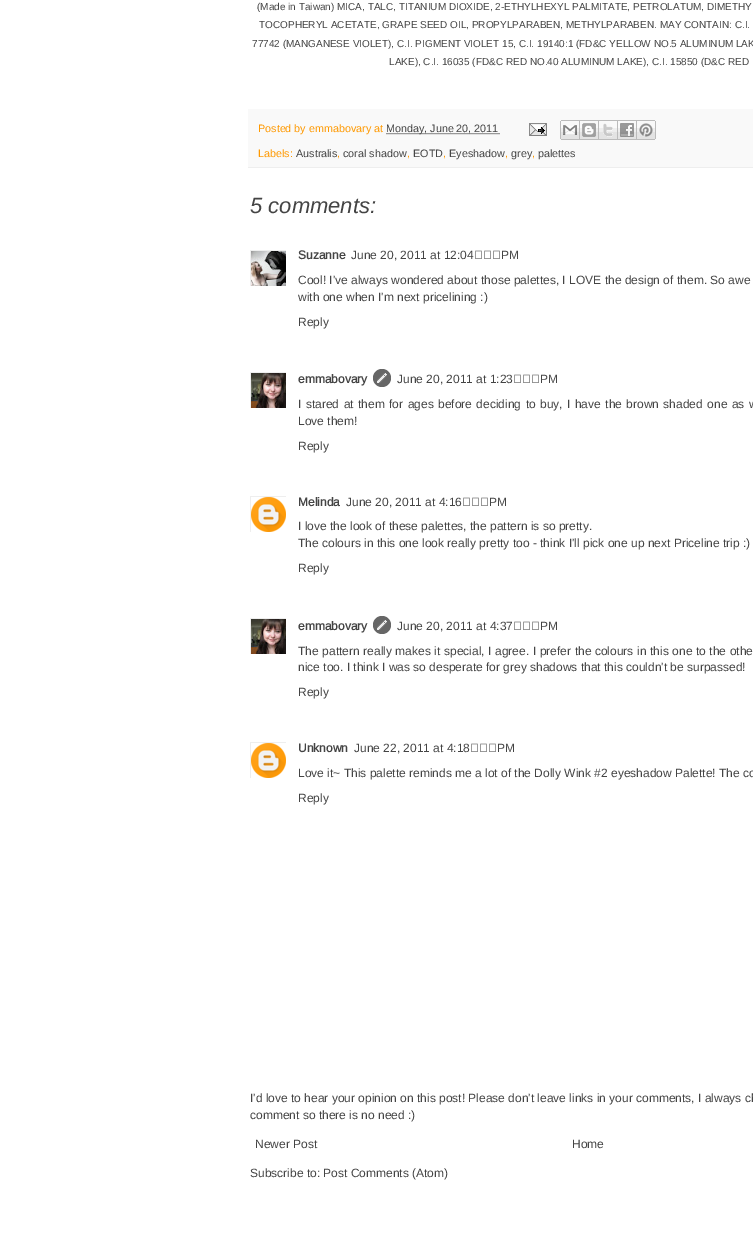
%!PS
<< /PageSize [753 1255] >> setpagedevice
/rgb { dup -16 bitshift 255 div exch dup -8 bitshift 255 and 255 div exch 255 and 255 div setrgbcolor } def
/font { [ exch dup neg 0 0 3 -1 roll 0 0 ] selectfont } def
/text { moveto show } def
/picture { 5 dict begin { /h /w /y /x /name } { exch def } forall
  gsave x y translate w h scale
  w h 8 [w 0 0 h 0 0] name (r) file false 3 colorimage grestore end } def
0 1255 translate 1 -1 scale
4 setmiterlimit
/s1 { /Arimo-Regular 10 font 16#444444 rgb } def
/s2 { /Arimo-Regular 10.75 font 16#FF9900 rgb } def
/s3 { /Arimo-Regular 10.75 font 16#444444 rgb } def
/s4 { /LiberationSans-Italic 22 font 16#444444 rgb } def
/s5 { /Arimo-Bold 12 font 16#444444 rgb } def
/s6 { /Arimo-Regular 12 font 16#444444 rgb } def
16#FFFFFF rgb
0 0 753 1255 rectfill
s1
(\(Made in Taiwan\) MICA, TALC, TITANIUM DIOXIDE, 2-ETHYLHEXYL PALMITATE, PETROLATUM, DIMETHY) 257 10 text
(TOCOPHERYL ACETATE, GRAPE SEED OIL, PROPYLPARABEN, METHYLPARABEN. MAY CONTAIN: C.I.) 259 28 text
(77742 \(MANGANESE VIOLET\), C.I. PIGMENT VIOLET 15, C.I. 19140:1 \(FD&C YELLOW NO.5 ALUMINUM LAK) 252 47 text
(LAKE\), C.I. 16035 \(FD&C RED NO.40 ALUMINUM LAKE\), C.I. 15850 \(D&C RED) 389 65 text
16#F9F9F9 rgb
248 109 505 58 rectfill
16#EEEEEE rgb
248 167 505 1 rectfill
s2
(Posted by emmabovary at) 258 132 text
16#444444 rgb
[1 1] 0 setdash
386.5 133.5 moveto 499.5 133.5 lineto stroke
(Monday, June 20, 2011) 386 132 text
(pic1.raw) 529 123 18 13 picture
(pic2.raw) 560 120 20 20 picture
(pic3.raw) 580 120 19 20 picture
(pic4.raw) 599 120 19 20 picture
(pic5.raw) 618 120 19 20 picture
(pic6.raw) 637 120 19 20 picture
s2
(Labels:) 258 157 text
s3
(Australis) 296 157 text
s2
(,) 337 157 text
s3
(coral shadow) 343 157 text
s2
(,) 407 157 text
s3
(EOTD) 413 157 text
s2
(,) 443 157 text
s3
(Eyeshadow) 449 157 text
s2
(,) 505 157 text
s3
(grey) 511 157 text
s2
(,) 532 157 text
s3
(palettes) 538 157 text
s4
(5 comments:) 250 213 text
gsave
250 250 36 36 rectclip
16#EEEEEE rgb
[] 0 setdash
250.5 250.5 37 37 rectstroke
grestore
(pic7.raw) 251 251 35 35 picture
s5
(Suzanne) 298 259 text
s6
(June 20, 2011 at 12:04 PM) 351 259 text
298 284 moveto 0.1 0 32 (Cool! I've always wondered about those palettes, I LOVE the design of them. So awe) widthshow
(with one when I'm next pricelining :\)) 298 301 text
(Reply) 298 326 text
gsave
250 372 36 36 rectclip
16#EEEEEE rgb
[] 0 setdash
250.5 372.5 37 37 rectstroke
grestore
(pic8.raw) 251 373 35 35 picture
s5
(emmabovary) 298 383 text
(pic9.raw) 373 369 18 18 picture
s6
(June 20, 2011 at 1:23 PM) 397 383 text
298 408 moveto 1.1 0 32 (I stared at them for ages before deciding to buy, I have the brown shaded one as w) widthshow
(Love them!) 298 425 text
(Reply) 298 450 text
gsave
250 496 36 36 rectclip
16#EEEEEE rgb
[] 0 setdash
250.5 496.5 36 36 rectstroke
grestore
(pic10.raw) 251 497 35 35 picture
s5
(Melinda) 298 506 text
s6
(June 20, 2011 at 4:16 PM) 346 506 text
(I love the look of these palettes, the pattern is so pretty.) 298 530 text
(The colours in this one look really pretty too - think I'll pick one up next Priceline trip :\)) 298 547 text
(Reply) 298 572 text
gsave
250 618 36 36 rectclip
16#EEEEEE rgb
[] 0 setdash
250.5 618.5 37 37 rectstroke
grestore
(pic8.raw) 251 619 35 35 picture
s5
(emmabovary) 298 630 text
(pic9.raw) 373 616 18 18 picture
s6
(June 20, 2011 at 4:37 PM) 397 630 text
298 655 moveto 0.25 0 32 (The pattern really makes it special, I agree. I prefer the colours in this one to the othe) widthshow
(nice too. I think I was so desperate for grey shadows that this couldn't be surpassed!) 298 671 text
(Reply) 298 696 text
gsave
250 742 36 36 rectclip
16#EEEEEE rgb
[] 0 setdash
250.5 742.5 36 36 rectstroke
grestore
(pic10.raw) 251 743 35 35 picture
s5
(Unknown) 298 752 text
s6
(June 22, 2011 at 4:18 PM) 354 752 text
(Love it~ This palette reminds me a lot of the Dolly Wink #2 eyeshadow Palette! The co) 298 777 text
(Reply) 298 802 text
(I'd love to hear your opinion on this post! Please don't leave links in your comments, I always ch) 250 1102 text
(comment so there is no need :\)) 250 1119 text
(Newer Post) 255 1148 text
(Home) 572 1148 text
(Subscribe to: Post Comments \(Atom\)) 250 1177 text
showpage
